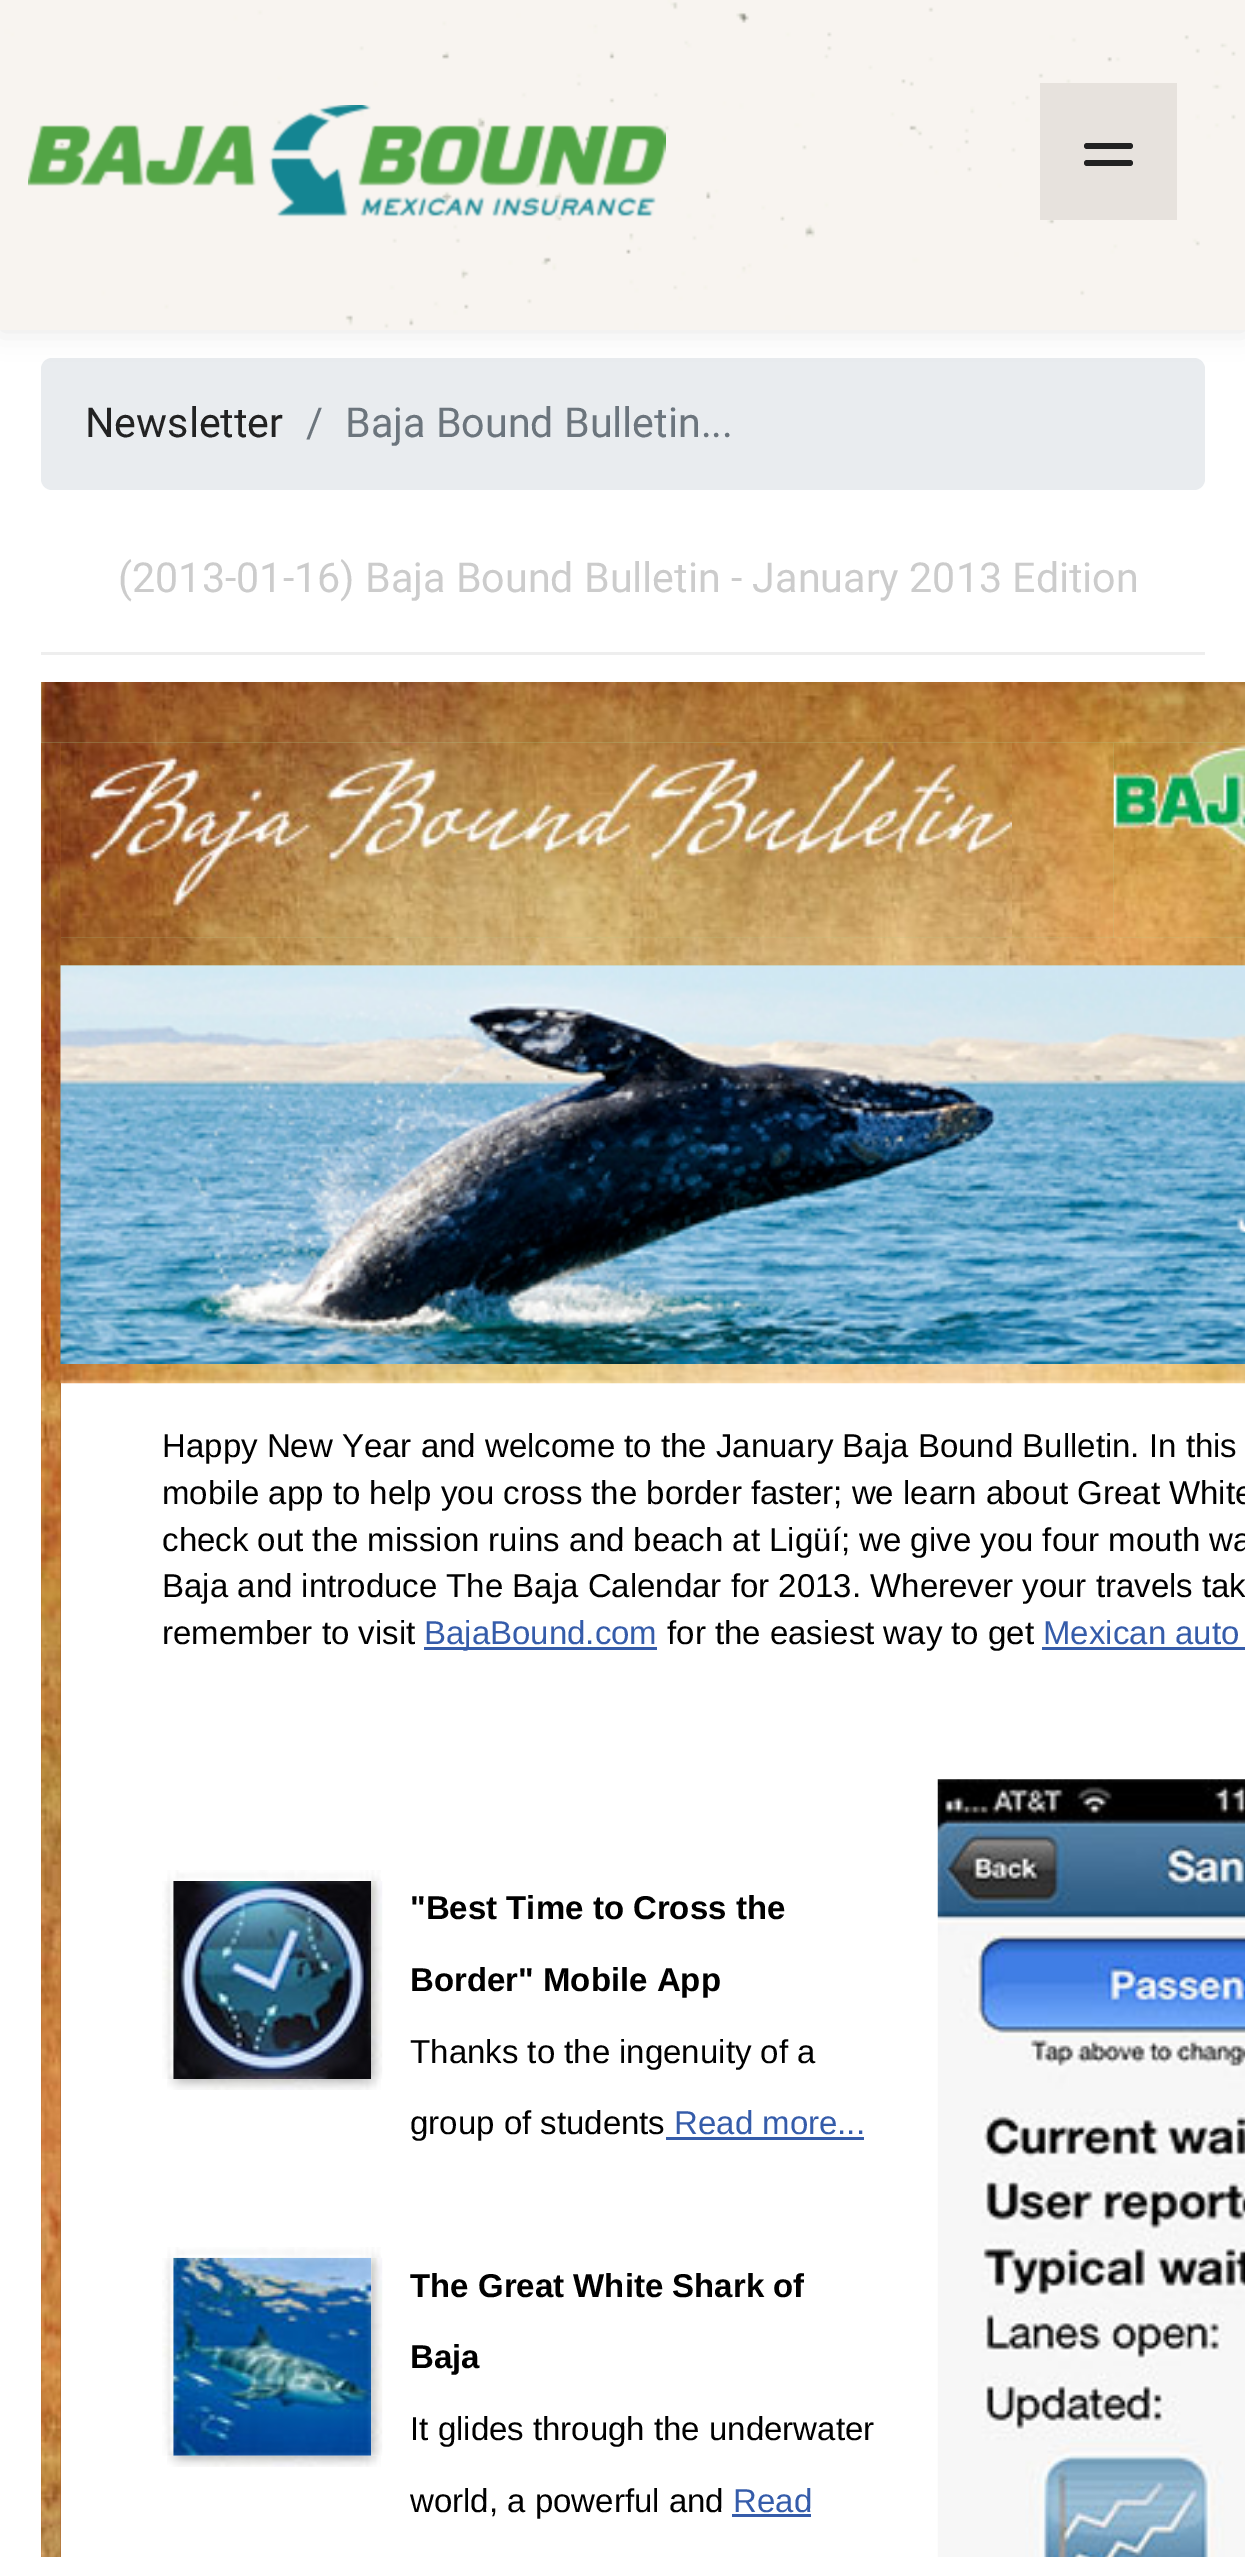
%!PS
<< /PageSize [1245 2557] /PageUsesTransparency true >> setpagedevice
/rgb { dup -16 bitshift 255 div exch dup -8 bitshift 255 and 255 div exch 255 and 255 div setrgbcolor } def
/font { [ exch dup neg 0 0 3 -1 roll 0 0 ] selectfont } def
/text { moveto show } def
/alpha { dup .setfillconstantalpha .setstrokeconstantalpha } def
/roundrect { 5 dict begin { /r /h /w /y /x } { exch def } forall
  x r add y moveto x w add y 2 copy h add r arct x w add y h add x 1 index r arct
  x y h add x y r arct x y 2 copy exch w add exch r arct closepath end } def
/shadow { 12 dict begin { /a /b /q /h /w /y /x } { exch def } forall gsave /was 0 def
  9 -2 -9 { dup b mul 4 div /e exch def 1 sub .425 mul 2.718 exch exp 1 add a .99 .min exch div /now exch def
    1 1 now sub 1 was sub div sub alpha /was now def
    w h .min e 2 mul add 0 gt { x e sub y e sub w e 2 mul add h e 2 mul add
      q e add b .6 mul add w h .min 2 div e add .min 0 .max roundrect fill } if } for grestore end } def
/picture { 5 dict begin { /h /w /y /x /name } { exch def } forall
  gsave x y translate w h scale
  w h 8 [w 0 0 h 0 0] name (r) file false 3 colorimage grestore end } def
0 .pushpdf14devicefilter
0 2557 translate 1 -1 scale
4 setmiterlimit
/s1 { /Roboto-Regular 41.25 font 16#222222 rgb } def
/s2 { /Roboto-Regular 41.25 font 16#6C757D rgb } def
/s3 { /Roboto-Regular 41.25 font 16#CCCCCC rgb } def
/s4 { /LiberationSans-Regular 33 font 16#000000 rgb } def
/s5 { /LiberationSans-Regular 33 font 16#355CAA rgb } def
/s6 { /LiberationSans-Bold 33 font 16#000000 rgb } def
16#FFFFFF rgb
0 0 1245 2557 rectfill
16#E9ECEF rgb
41 358 1164 132 11 roundrect fill
16#000000 rgb
0 0 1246 330 0 14 0.1 shadow
(pic1.raw) 0 0 1245 330 picture
(pic2.raw) 28 105 638 112 picture
16#E7E2DD rgb
1040 83 137 137 rectfill
16#222222 rgb
1084 143 49 6 3 roundrect fill
1084 160 49 6 3 roundrect fill
16#EEEEEE rgb
41 652 1164 3 rectfill
s1
(Newsletter) 85 437 text
s2
(/) 306 437 text
(Baja Bound Bulletin...) 345 437 text
s3
(\(2013-01-16\) Baja Bound Bulletin - January 2013 Edition) 118 592 text
16#ADD292 rgb
41 682 1204 284 rectfill
16#B1642B rgb
41 743 20 1814 rectfill
(pic4.raw) 41 742 20 1815 picture
(pic5.raw) 60 742 952 196 picture
(pic6.raw) 1012 742 102 196 picture
(pic7.raw) 1113 742 132 196 picture
(pic3.raw) 41 682 1204 61 picture
(pic9.raw) 60 965 1185 399 picture
(pic8.raw) 60 937 1185 29 picture
(pic10.raw) 60 1364 1185 20 picture
s4
(Happy New Year and welcome to the January Baja Bound Bulletin. In this) 162 1457 text
(mobile app to help you cross the border faster; we learn about Great White) 162 1504 text
(check out the mission ruins and beach at Ligüí; we give you four mouth wa) 162 1551 text
(Baja and introduce The Baja Calendar for 2013. Wherever your travels tak) 162 1597 text
(remember to visit) 162 1644 text
16#355CAA rgb
424 1647 233 3 rectfill
(BajaBound.com) 424 1644 text
s4
(for the easiest way to get) 667 1644 text
s5
(Mexican auto) 1043 1644 text
1042 1647 203 3 rectfill
(pic11.raw) 167 1870 214 11 picture
(pic13.raw) 173 1881 199 198 picture
(pic12.raw) 162 1881 12 198 picture
(pic14.raw) 371 1881 12 198 picture
(pic15.raw) 167 2079 214 11 picture
s6
("Best Time to Cross the) 410 1919 text
(Border" Mobile App) 410 1991 text
s4
(Thanks to the ingenuity of a) 410 2063 text
(group of students) 410 2134 text
16#355CAA rgb
666 2137 198 3 rectfill
(Read more...) 674 2134 text
(pic18.raw) 173 2257 199 199 picture
(pic16.raw) 167 2247 214 11 picture
(pic17.raw) 162 2258 12 198 picture
(pic19.raw) 371 2257 12 199 picture
(pic20.raw) 167 2455 214 12 picture
s6
(The Great White Shark of) 410 2297 text
(Baja) 410 2368 text
s4
(It glides through the underwater) 410 2440 text
(world, a powerful and) 410 2512 text
s5
(Read) 733 2512 text
732 2514 79 3 rectfill
(pic21.raw) 937 1779 308 778 picture
.poppdf14devicefilter showpage
